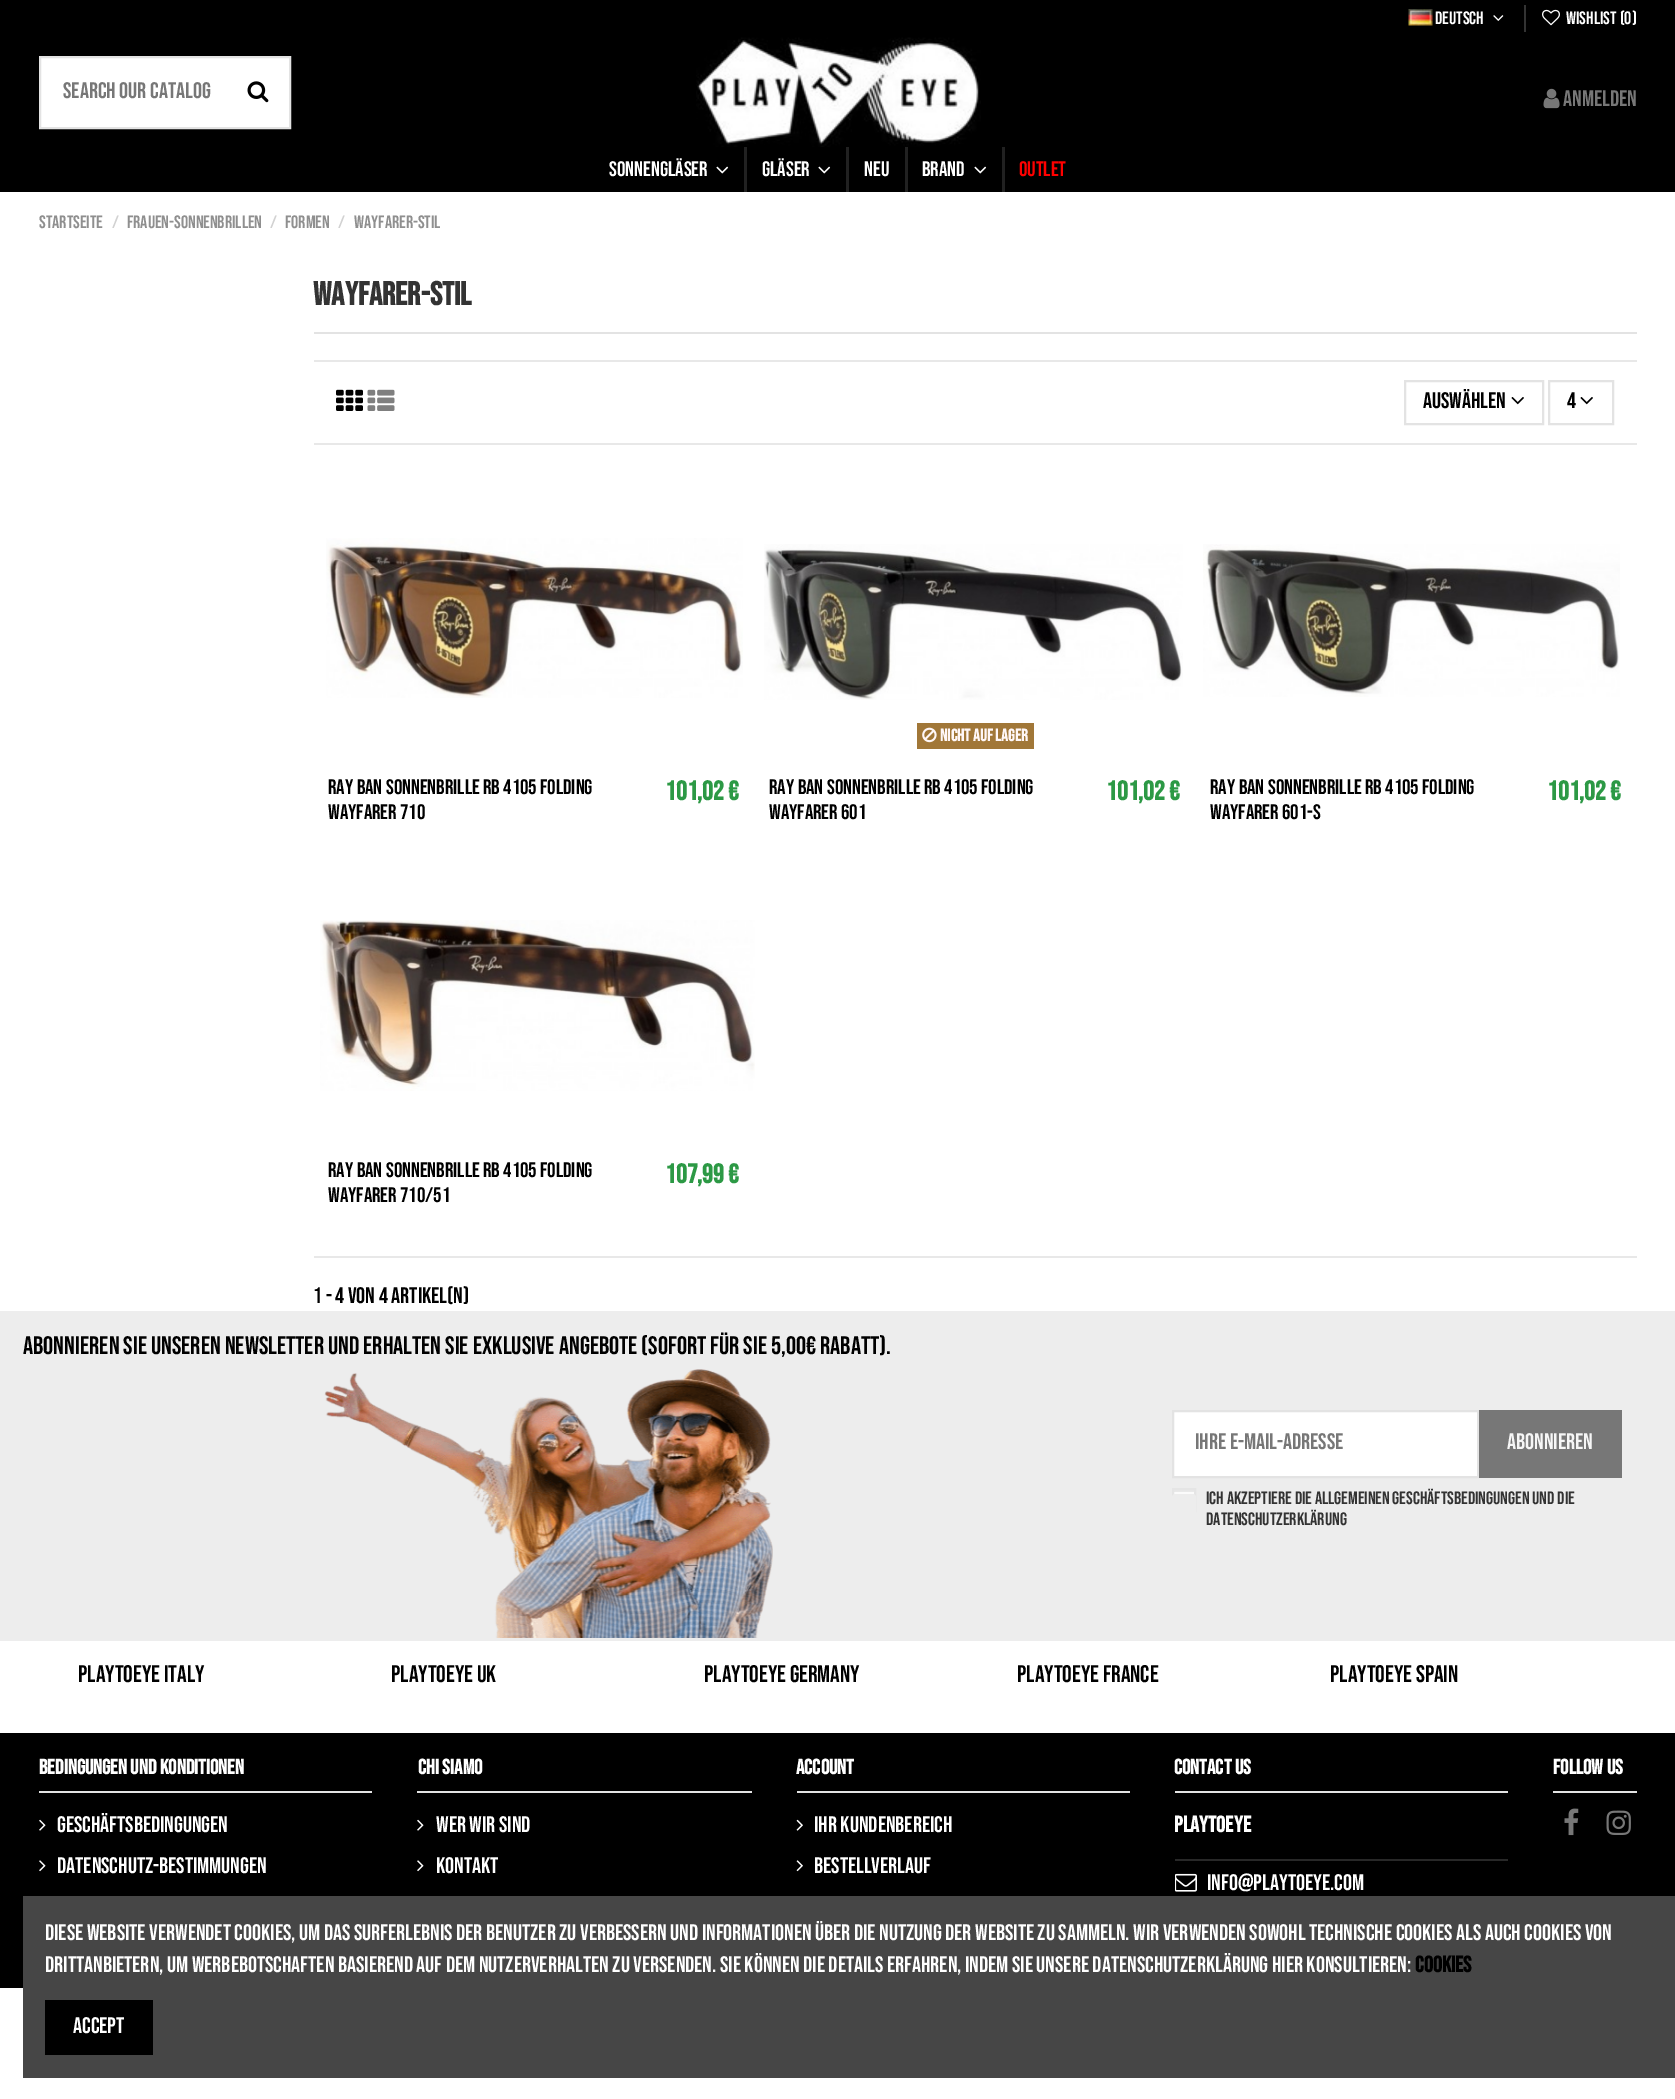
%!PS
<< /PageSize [1675 2099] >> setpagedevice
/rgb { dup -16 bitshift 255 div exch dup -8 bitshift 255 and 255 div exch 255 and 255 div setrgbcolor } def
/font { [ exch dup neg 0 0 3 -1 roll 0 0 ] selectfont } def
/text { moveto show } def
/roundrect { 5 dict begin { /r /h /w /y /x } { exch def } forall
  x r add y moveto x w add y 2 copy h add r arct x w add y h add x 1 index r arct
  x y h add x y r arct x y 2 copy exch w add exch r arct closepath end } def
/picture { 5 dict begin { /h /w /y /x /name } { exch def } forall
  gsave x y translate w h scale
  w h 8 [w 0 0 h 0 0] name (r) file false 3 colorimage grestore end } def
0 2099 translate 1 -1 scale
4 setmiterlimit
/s1 { /BebasNeue-Regular 18 font 16#FFFFFF rgb } def
/s2 { /BebasNeue-Regular 22.5 font 16#777777 rgb } def
/s3 { /BebasNeue-Regular 21 font 16#FFFFFF rgb } def
/s4 { /BebasNeue-Regular 21 font 16#FF0000 rgb } def
/s5 { /BebasNeue-Regular 18 font 16#8F8F8F rgb } def
/s6 { /BebasNeue-Regular 18 font 16#D2D2D2 rgb } def
/s7 { /BebasNeue-Bold 33 font 16#333333 rgb } def
/s8 { /BebasNeue-Regular 22.5 font 16#000000 rgb } def
/s9 { /BebasNeue-Regular 21 font 16#000000 rgb } def
/s10 { /BebasNeue-Bold 27 font 16#2C9945 rgb } def
/s11 { /BebasNeue-Bold 17 font 16#FFF7F7 rgb } def
/s12 { /BebasNeue-Regular 25.3 font 16#000000 rgb } def
/s13 { /BebasNeue-Regular 22.5 font 16#F6F6F6 rgb } def
/s14 { /BebasNeue-Regular 18 font 16#333333 rgb } def
/s15 { /BebasNeue-Regular 24 font 16#000000 rgb } def
/s16 { /BebasNeue-Bold 21 font 16#FFFFFF rgb } def
/s17 { /BebasNeue-Regular 22.5 font 16#FFFFFF rgb } def
/s18 { /BebasNeue-Bold 22.5 font 16#FFFFFF rgb } def
/s19 { /BebasNeue-Bold 22.5 font 16#000000 rgb } def
16#FFFFFF rgb
0 0 1675 2099 rectfill
16#000000 rgb
0 0 1675 192 rectfill
(pic1.raw) 1408 9 25 17 picture
s1
(Deutsch) 1435 24 text
(pic2.raw) 1493 15 11 6 picture
16#333333 rgb
1524 5 2 27 rectfill
(pic3.raw) 1542 9 18 17 picture
s1
(Wishlist \(0\)) 1566 24 text
40 57 moveto 290 57 lineto 290 128 lineto 40 128 lineto closepath gsave fill grestore
16#E3E3E3 rgb
2 setlinewidth
stroke
s2
(Search our catalog) 63 98 text
(pic4.raw) 247 81 22 22 picture
(pic5.raw) 696 37 285 110 picture
(pic6.raw) 1543 88 17 21 picture
(Anmelden) 1563 106 text
s3
(SONNENGLÄSER) 609 176 text
(pic7.raw) 716 166 13 8 picture
16#212121 rgb
744 147 3 45 rectfill
s3
(GLÄSER) 762 176 text
(pic7.raw) 818 166 13 8 picture
16#212121 rgb
846 147 3 45 rectfill
s3
(NEU) 864 176 text
16#212121 rgb
905 147 3 45 rectfill
s3
(BRAND) 922 176 text
(pic7.raw) 974 166 13 8 picture
16#212121 rgb
1002 147 3 45 rectfill
s4
(OUTLET) 1019 176 text
s5
(Startseite) 39 228 text
s6
(/) 112 228 text
s5
(Frauen-Sonnenbrillen) 127 228 text
s6
(/) 270 228 text
s5
(Formen) 285 228 text
s6
(/) 338 228 text
s5
(Wayfarer-Stil) 354 228 text
16#E3E3E3 rgb
314 332 1323 2 rectfill
s7
(Wayfarer-Stil) 313 305 text
16#E8E8E8 rgb
314 360 1323 2 rectfill
314 443 1323 2 rectfill
(pic8.raw) 336 389 27 22 picture
(pic9.raw) 367 389 28 22 picture
16#E3E3E3 rgb
1405 381 138 43 rectstroke
s8
(Auswählen) 1423 408 text
(pic10.raw) 1511 397 13 8 picture
16#E3E3E3 rgb
1549 381 64 43 rectstroke
s8
(4) 1567 408 text
(pic10.raw) 1580 397 13 8 picture
(pic11.raw) 326 538 417 160 picture
s9
(RAY BAN Sonnenbrille rb 4105 Folding) 328 794 text
(Wayfarer 710) 328 819 text
s10
(101,02 €) 665 800 text
(pic12.raw) 764 544 419 156 picture
16#A17738 rgb
917 723 117 26 rectfill
(pic13.raw) 922 727 15 16 picture
s11
(Nicht auf Lager) 940 741 text
s9
(RAY BAN Sonnenbrille rb 4105 Folding) 769 794 text
(Wayfarer 601) 769 819 text
s10
(101,02 €) 1106 800 text
(pic14.raw) 1203 544 417 153 picture
s9
(RAY BAN Sonnenbrille rb 4105 Folding) 1210 794 text
(Wayfarer 601-S) 1210 819 text
s10
(101,02 €) 1547 800 text
(pic15.raw) 320 920 435 171 picture
s9
(RAY BAN Sonnenbrille rb 4105 Folding) 328 1177 text
(Wayfarer 710/51) 328 1202 text
s10
(107,99 €) 665 1183 text
16#E8E8E8 rgb
314 1256 1323 2 rectfill
s8
(1 - 4 von 4 Artikel\(n\)) 313 1303 text
16#EDEDED rgb
0 1311 1675 330 rectfill
s12
(Abonnieren Sie unseren Newsletter und erhalten Sie exklusive Angebote \(sofort für Sie 5,00€ Rabatt\).) 23 1354 text
(pic16.raw) 324 1369 449 269 picture
16#FFFFFF rgb
1173 1411 moveto 1478 1411 lineto 1478 1477 lineto 1173 1477 lineto closepath gsave fill grestore
16#E3E3E3 rgb
stroke
s2
(Ihre E-Mail-Adresse) 1195 1449 text
1479 1410 143 68 rectfill
s13
(Abonnieren) 1507 1449 text
16#FBFBFB rgb
1174 1492 20 3 rectfill
16#E9E9E9 rgb
1173 1490 21 2 rectfill
16#E5E5E5 rgb
1173 1489 22 22 rectstroke
s14
(Ich akzeptiere die Allgemeinen Geschäftsbedingungen und die) 1206 1504 text
(Datenschutzerklärung) 1206 1525 text
16#EDEDED rgb
1172 1494 24 24 3 roundrect fill
s15
(Playtoeye Italy) 78 1682 text
(Playtoeye UK) 391 1682 text
(Playtoeye Germany) 704 1682 text
(Playtoeye France) 1017 1682 text
(Playtoeye Spain) 1330 1682 text
0 1733 1675 255 rectfill
16#E3E3E3 rgb
39 1791 333 2 rectfill
s16
(Bedingungen und Konditionen) 39 1774 text
(pic17.raw) 39 1819 7 12 picture
s17
(Geschäftsbedingungen) 57 1832 text
(pic18.raw) 39 1860 7 12 picture
(Datenschutz-Bestimmungen) 57 1873 text
16#E3E3E3 rgb
417 1791 335 2 rectfill
s16
(Chi Siamo) 418 1774 text
(pic17.raw) 417 1819 7 12 picture
s17
(Wer wir sind) 436 1832 text
(pic18.raw) 417 1860 7 12 picture
(Kontakt) 436 1873 text
16#E3E3E3 rgb
797 1791 333 2 rectfill
s16
(Account) 796 1774 text
(pic19.raw) 796 1819 7 12 picture
s17
(Ihr Kundenbereich) 814 1832 text
(pic20.raw) 796 1860 7 12 picture
(Bestellverlauf) 814 1873 text
16#E3E3E3 rgb
1175 1791 333 2 rectfill
s16
(Contact us) 1174 1774 text
s18
(Playtoeye) 1174 1832 text
16#282828 rgb
1175 1859 333 2 rectfill
(pic21.raw) 1175 1873 22 19 picture
s17
(info@playtoeye.com) 1207 1890 text
16#E3E3E3 rgb
1553 1791 84 2 rectfill
s16
(Follow us) 1553 1774 text
(pic22.raw) 1564 1808 15 28 picture
(pic23.raw) 1606 1810 25 25 picture
16#464646 rgb
23 1896 1652 182 rectfill
s17
(Diese Website verwendet Cookies, um das Surferlebnis der Benutzer zu verbessern und Informationen über die Nutzung der Website zu sammeln. Wir verwenden sowohl technische Cookies als auch Cookies von) 45 1940 text
(Drittanbietern, um Werbebotschaften basierend auf dem Nutzerverhalten zu versenden. Sie können die Details erfahren, indem Sie unsere Datenschutzerklärung hier konsultieren:) 45 1972 text
s19
(Cookies) 1415 1972 text
45 2000 108 55 rectfill
s17
(Accept) 73 2033 text
showpage
